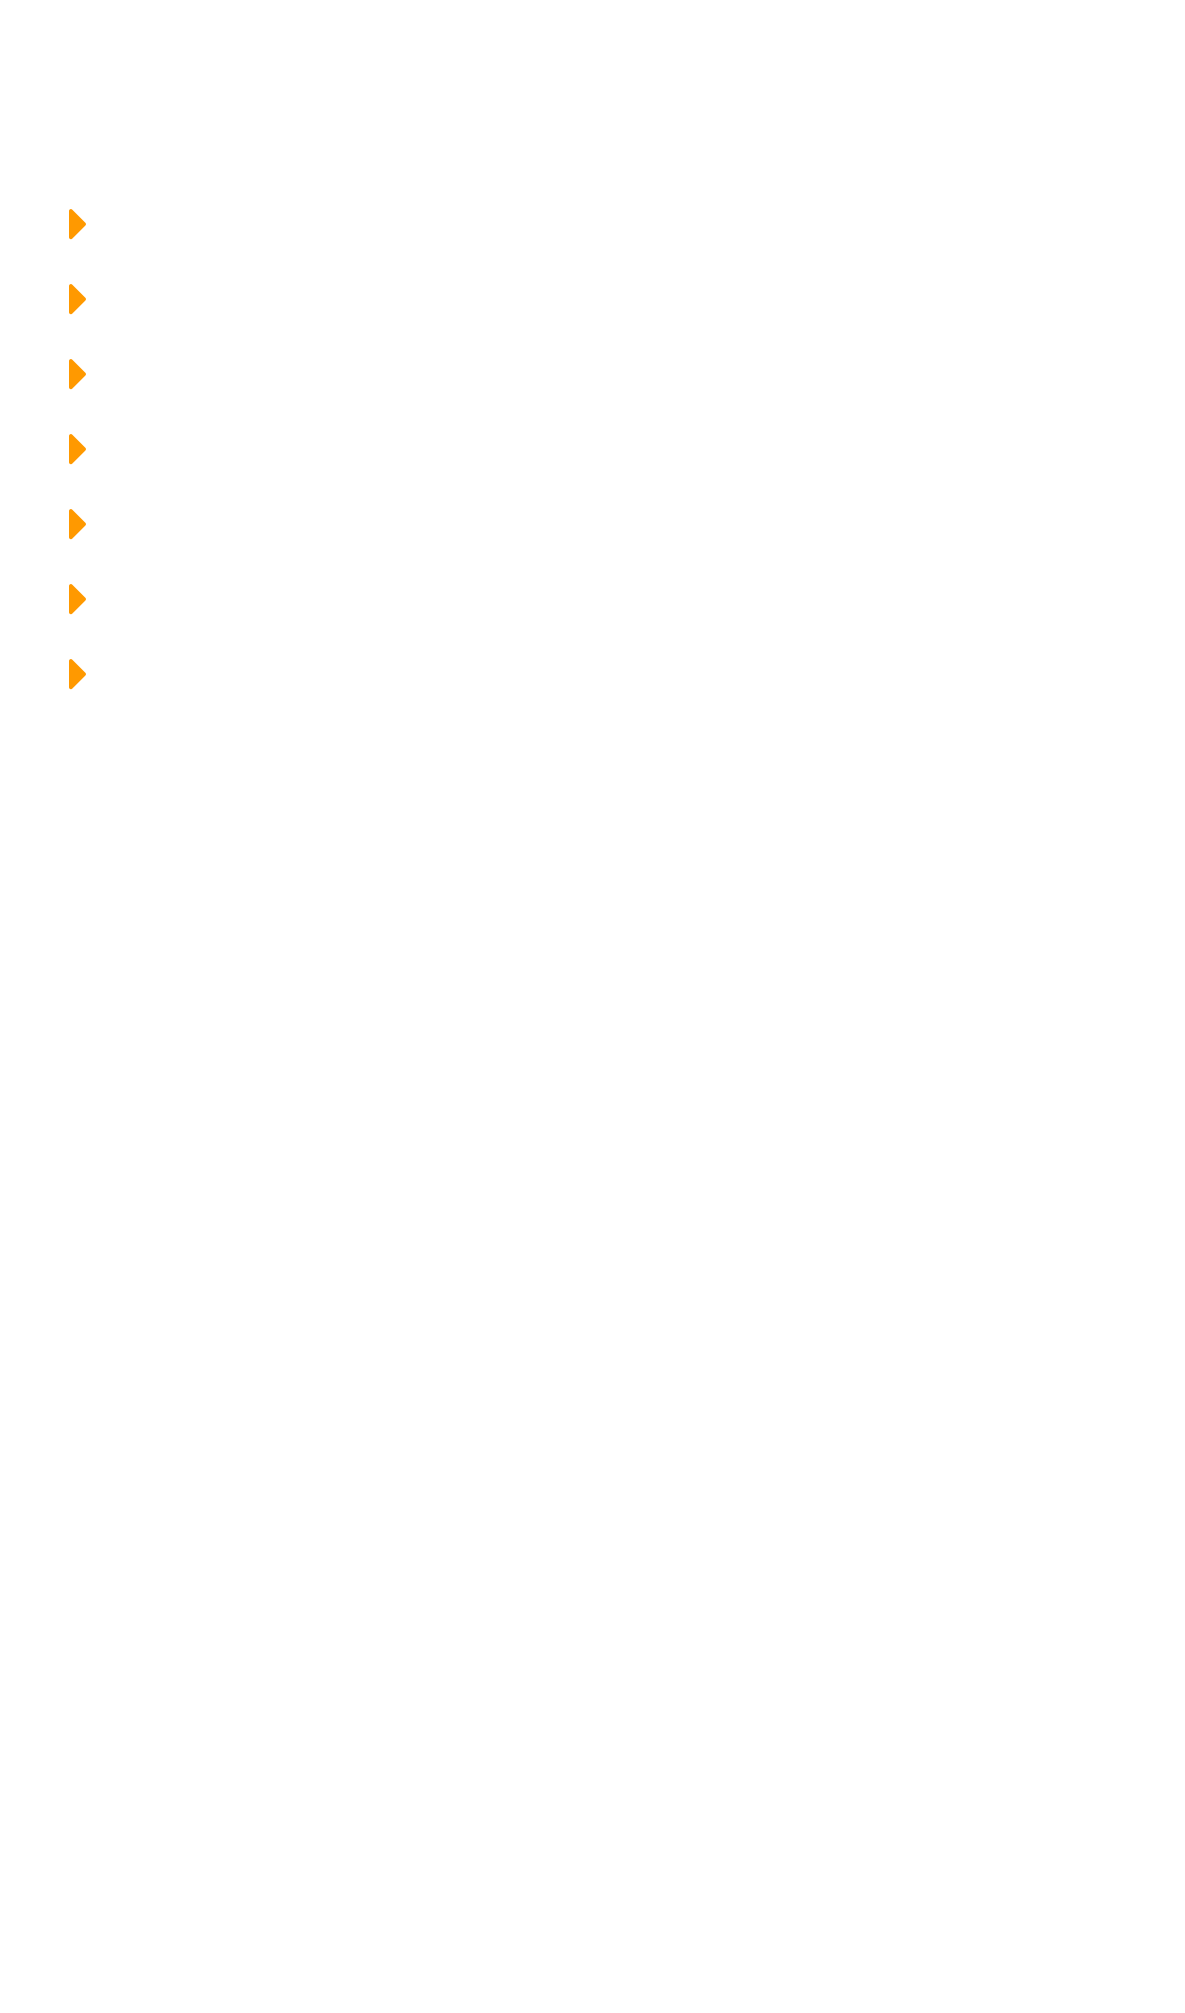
%!PS
<< /PageSize [1185 2013] >> setpagedevice
/rgb { dup -16 bitshift 255 div exch dup -8 bitshift 255 and 255 div exch 255 and 255 div setrgbcolor } def
/picture { 5 dict begin { /h /w /y /x /name } { exch def } forall
  gsave x y translate w h scale
  w h 8 [w 0 0 h 0 0] name (r) file false 3 colorimage grestore end } def
0 2013 translate 1 -1 scale
4 setmiterlimit
16#FFFFFF rgb
0 0 1185 2013 rectfill
(pic1.raw) 69 209 17 31 picture
(pic1.raw) 69 284 17 31 picture
(pic1.raw) 69 359 17 31 picture
(pic1.raw) 69 434 17 31 picture
(pic1.raw) 69 509 17 31 picture
(pic1.raw) 69 584 17 31 picture
(pic1.raw) 69 659 17 31 picture
showpage
